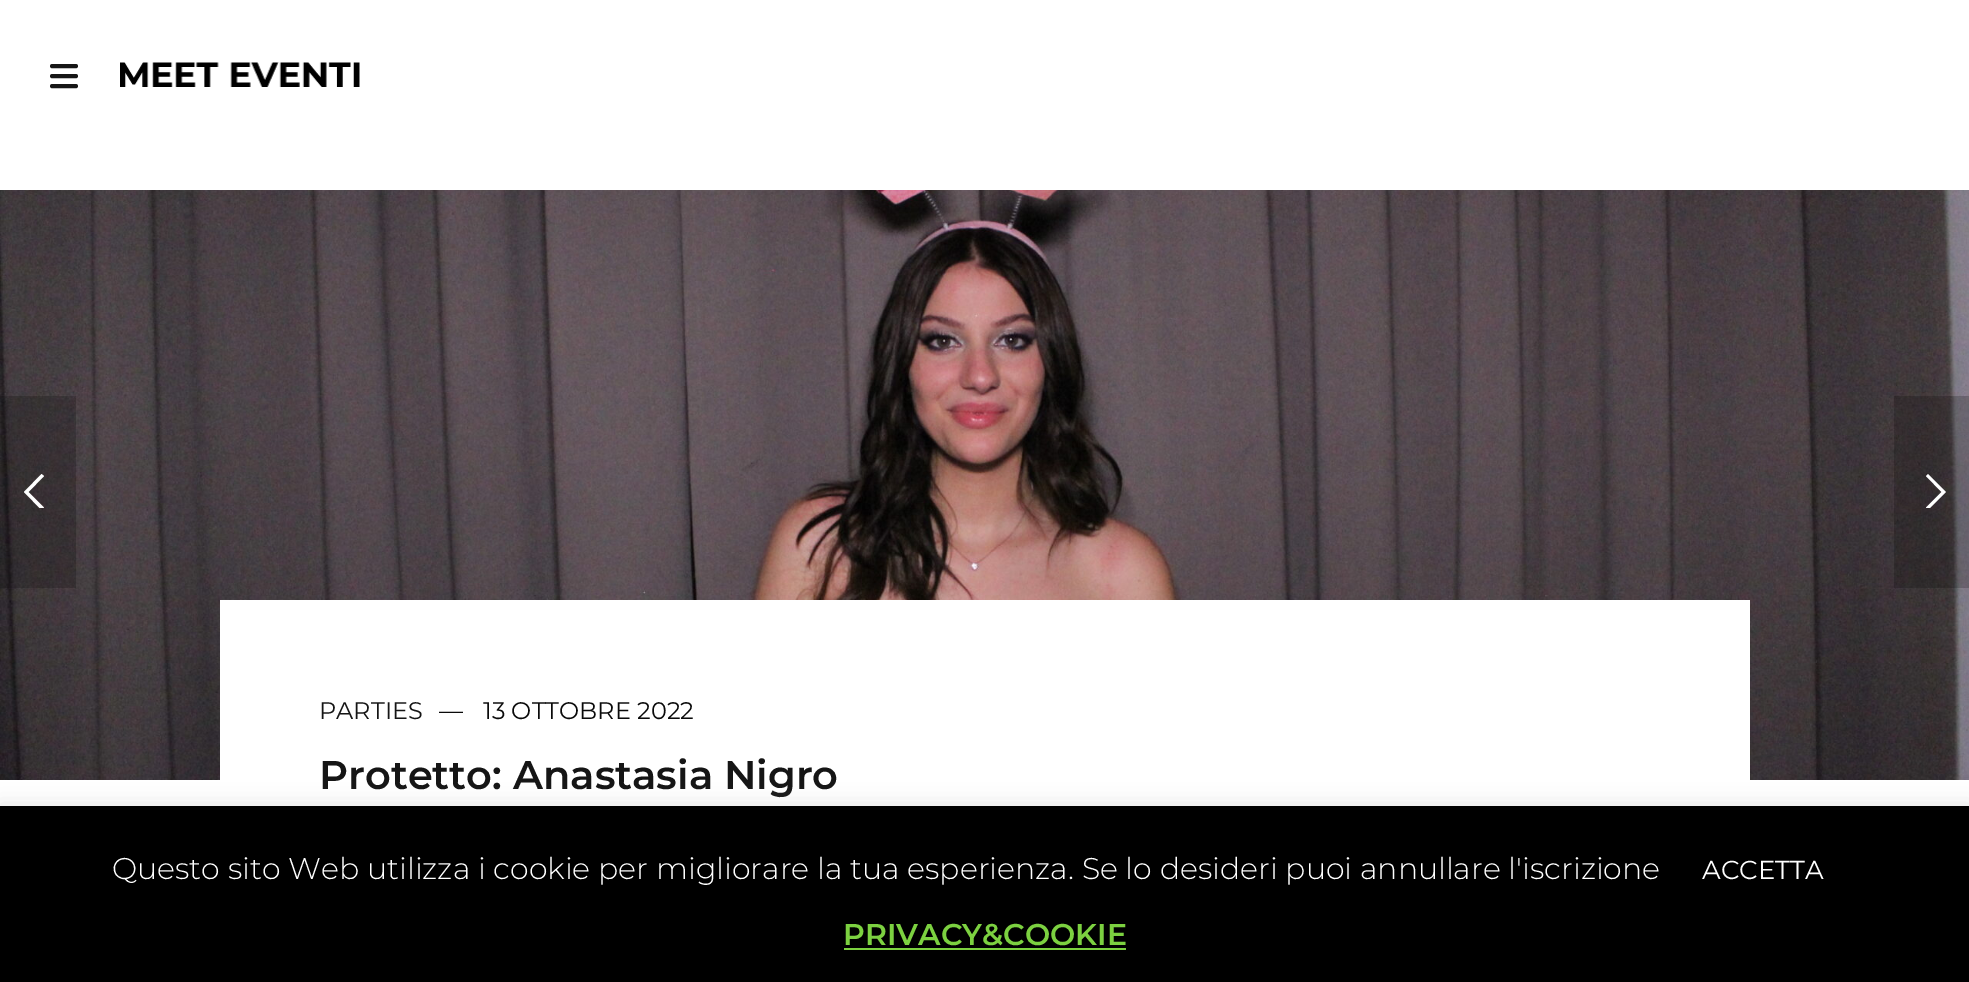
%!PS
<< /PageSize [1969 982] /PageUsesTransparency true >> setpagedevice
/rgb { dup -16 bitshift 255 div exch dup -8 bitshift 255 and 255 div exch 255 and 255 div setrgbcolor } def
/font { [ exch dup neg 0 0 3 -1 roll 0 0 ] selectfont } def
/text { moveto show } def
/alpha { dup .setfillconstantalpha .setstrokeconstantalpha } def
/roundrect { 5 dict begin { /r /h /w /y /x } { exch def } forall
  x r add y moveto x w add y 2 copy h add r arct x w add y h add x 1 index r arct
  x y h add x y r arct x y 2 copy exch w add exch r arct closepath end } def
/shadow { 12 dict begin { /a /b /q /h /w /y /x } { exch def } forall gsave /was 0 def
  9 -2 -9 { dup b mul 4 div /e exch def 1 sub .425 mul 2.718 exch exp 1 add a .99 .min exch div /now exch def
    1 1 now sub 1 was sub div sub alpha /was now def
    w h .min e 2 mul add 0 gt { x e sub y e sub w e 2 mul add h e 2 mul add
      q e add b .6 mul add w h .min 2 div e add .min 0 .max roundrect fill } if } for grestore end } def
/picture { 5 dict begin { /h /w /y /x /name } { exch def } forall
  gsave x y translate w h scale
  w h 8 [w 0 0 h 0 0] name (r) file false 3 colorimage grestore end } def
0 .pushpdf14devicefilter
0 982 translate 1 -1 scale
4 setmiterlimit
/s1 { /Montserrat-Regular 24 font 16#151515 rgb } def
/s2 { /Montserrat-Regular 24 font 16#0A0A0A rgb } def
/s3 { /Montserrat-SemiBold 40 font 16#151515 rgb } def
/s4 { /Montserrat-Light 30 font 16#FFFFFF rgb } def
/s5 { /Montserrat-Regular 26 font 16#FFFFFF rgb } def
/s6 { /Montserrat-SemiBold 30 font 16#7CD140 rgb } def
16#FFFFFF rgb
0 0 1969 982 rectfill
16#161616 rgb
4 setlinewidth
1 setlinecap
1 setlinejoin
52 66 moveto 76 66 lineto 52 76 moveto 76 76 lineto 52 86 moveto 76 86 lineto stroke
(pic1.raw) 120 62 240 25 picture
(pic2.raw) 0 190 1969 590 picture
0.2 alpha
16#000000 rgb
0 396 76 192 rectfill
gsave
24 474 20 34 rectclip
1 alpha
16#FFFFFF rgb
44 476 moveto 41.5 474 lineto 24 492 lineto 41.5 510 lineto 44 507.5 lineto 28.5 492 lineto closepath eofill
grestore
1894 396 75 192 rectfill
gsave
1926 474 20 34 rectclip
1 alpha
16#FFFFFF rgb
1926 507.5 moveto 1928 510 lineto 1946 492 lineto 1928 474 lineto 1926 476 lineto 1941.5 492 lineto closepath eofill
grestore
1 alpha
16#FFFFFF rgb
220 600 1530 180 rectfill
s1
(PARTIES) 319 719 text
s2
(—) 439 719 text
(13 OTTOBRE 2022) 483 719 text
s3
(Protetto: Anastasia Nigro) 319 789 text
16#ACABAB rgb
0 804 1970 176 0 10 0.3 shadow
16#000000 rgb
0 806 1969 176 rectfill
s4
(Questo sito Web utilizza i cookie per migliorare la tua esperienza. Se lo desideri puoi annullare l'iscrizione) 112 879 text
s5
(ACCETTA) 1702 879 text
s6
(PRIVACY&COOKIE) 843 945 text
844 948 282 2 rectfill
.poppdf14devicefilter showpage
